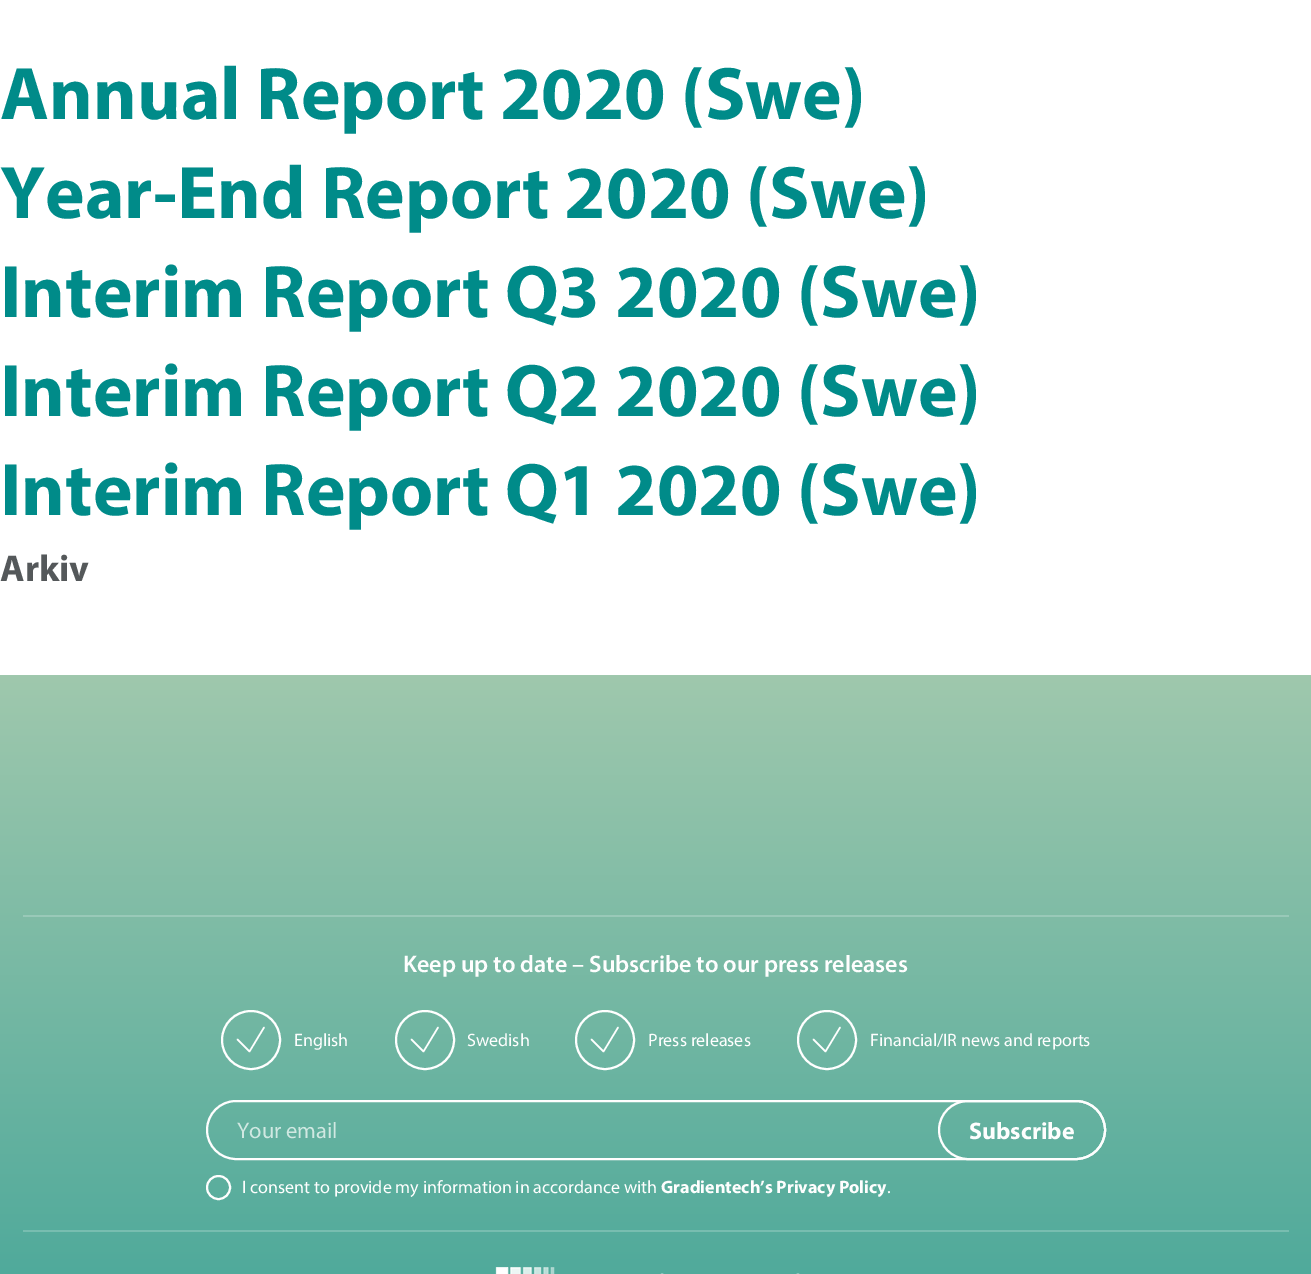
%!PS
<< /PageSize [1311 1274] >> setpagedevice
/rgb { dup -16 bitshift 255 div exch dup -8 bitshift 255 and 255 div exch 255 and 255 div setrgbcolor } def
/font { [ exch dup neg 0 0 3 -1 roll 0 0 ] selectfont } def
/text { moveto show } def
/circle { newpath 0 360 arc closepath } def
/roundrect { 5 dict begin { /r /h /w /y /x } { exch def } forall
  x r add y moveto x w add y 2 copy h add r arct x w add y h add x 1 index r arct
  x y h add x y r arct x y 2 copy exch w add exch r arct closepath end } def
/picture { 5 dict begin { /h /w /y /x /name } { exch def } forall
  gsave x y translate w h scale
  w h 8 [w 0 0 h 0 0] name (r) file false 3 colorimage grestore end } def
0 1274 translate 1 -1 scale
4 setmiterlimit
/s1 { /Myriad-Bold 75 font 16#008B89 rgb } def
/s2 { /Myriad-Bold 37.5 font 16#54585A rgb } def
/s3 { /Myriad-SemiBold 24 font 16#FEFEFE rgb } def
/s4 { /Myriad-Regular 18 font 16#FEFEFE rgb } def
/s5 { /Myriad-Regular 22.5 font 16#D0E8E2 rgb } def
/s6 { /Myriad-Bold 24 font 16#FEFEFE rgb } def
/s7 { /Myriad-Bold 18 font 16#FEFEFE rgb } def
16#FFFFFF rgb
0 0 1311 1274 rectfill
s1
(Annual Report 2020 \(Swe\)) 0 119 text
(Year-End Report 2020 \(Swe\)) 0 218 text
(Interim Report Q3 2020 \(Swe\)) 0 317 text
(Interim Report Q2 2020 \(Swe\)) 0 416 text
(Interim Report Q1 2020 \(Swe\)) 0 515 text
s2
(Arkiv) 0 581 text
gsave 0 675 moveto 1311 675 lineto 1311 1274 lineto 0 1274 lineto closepath clip newpath
<< /ShadingType 2 /ColorSpace /DeviceRGB /Coords [656 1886 656 675] /Extend [true true] /Function << /FunctionType 2 /Domain [0 1] /C0 [0 0.545 0.537] /C1 [0.624 0.784 0.678] /N 1 >> >> shfill grestore
16#99C9B8 rgb
23 915 1266 2 rectfill
s3
(Keep up to date – Subscribe to our press releases) 403 972 text
16#FFFFFF rgb
1.5 setlinewidth
1 setlinecap
1 setlinejoin
237.5 1039.5 moveto 249.5 1051.5 lineto 264 1027.5 lineto stroke
2 setlinewidth
0 setlinecap
0 setlinejoin
251 1040 29 circle stroke
s4
(English) 294 1046 text
16#FFFFFF rgb
1.5 setlinewidth
1 setlinecap
1 setlinejoin
411.5 1039.5 moveto 423.5 1051.5 lineto 438 1027.5 lineto stroke
2 setlinewidth
0 setlinecap
0 setlinejoin
425 1040 29 circle stroke
s4
(Swedish) 467 1046 text
16#FFFFFF rgb
1.5 setlinewidth
1 setlinecap
1 setlinejoin
591.5 1039.5 moveto 603.5 1051.5 lineto 618 1027.5 lineto stroke
2 setlinewidth
0 setlinecap
0 setlinejoin
605 1040 29 circle stroke
s4
(Press releases) 648 1046 text
16#FFFFFF rgb
1.5 setlinewidth
1 setlinecap
1 setlinejoin
813.5 1039.5 moveto 825.5 1051.5 lineto 840 1027.5 lineto stroke
2 setlinewidth
0 setlinecap
0 setlinejoin
827 1040 29 circle stroke
s4
(Financial/IR news and reports) 870 1046 text
207 1101 898 58 29 roundrect stroke
s5
(Your email) 237 1138 text
16#FEFEFE rgb
939 1101 166 58 29 roundrect stroke
s6
(Subscribe) 969 1139 text
218.5 1187.5 11.5 circle stroke
s4
(I consent to provide my information in accordance with) 242 1193 text
s7
(Gradientech’s Privacy Policy) 661 1193 text
s4
(.) 887 1193 text
16#78BDB0 rgb
23 1230 1266 2 rectfill
(pic1.raw) 495 1267 305 7 picture
showpage
